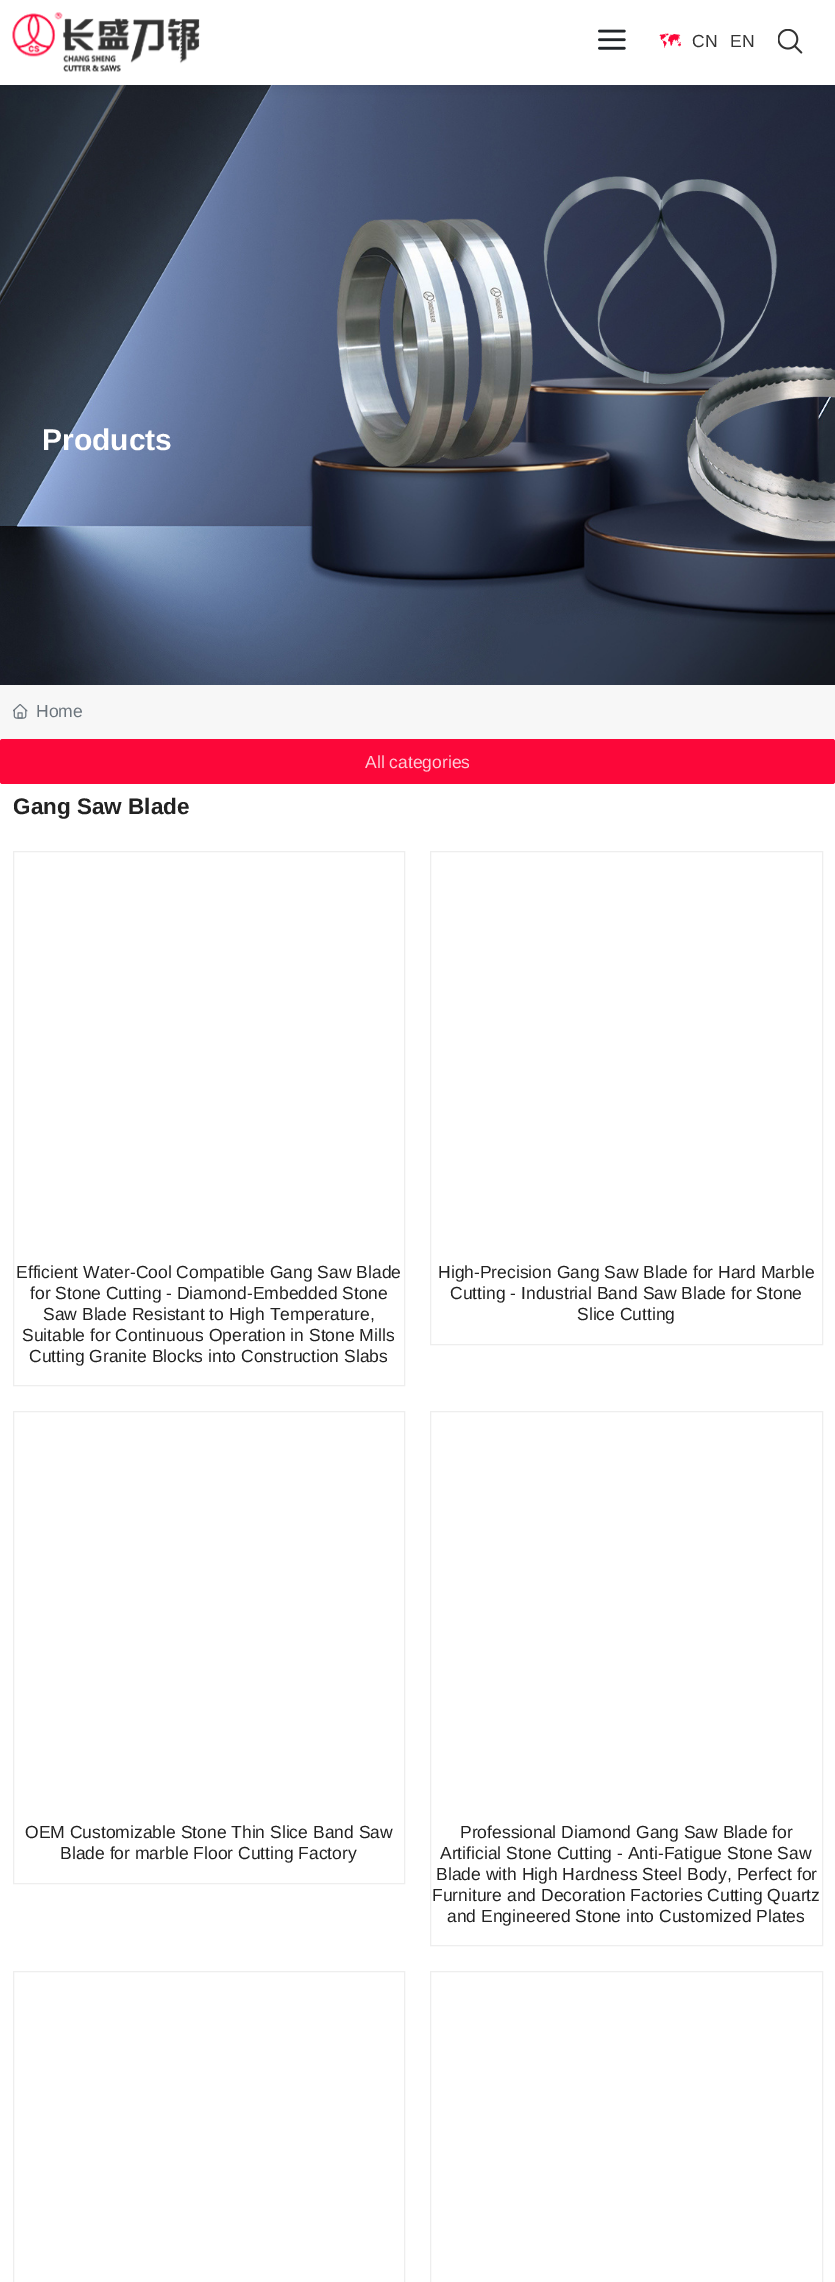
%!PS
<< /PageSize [835 2282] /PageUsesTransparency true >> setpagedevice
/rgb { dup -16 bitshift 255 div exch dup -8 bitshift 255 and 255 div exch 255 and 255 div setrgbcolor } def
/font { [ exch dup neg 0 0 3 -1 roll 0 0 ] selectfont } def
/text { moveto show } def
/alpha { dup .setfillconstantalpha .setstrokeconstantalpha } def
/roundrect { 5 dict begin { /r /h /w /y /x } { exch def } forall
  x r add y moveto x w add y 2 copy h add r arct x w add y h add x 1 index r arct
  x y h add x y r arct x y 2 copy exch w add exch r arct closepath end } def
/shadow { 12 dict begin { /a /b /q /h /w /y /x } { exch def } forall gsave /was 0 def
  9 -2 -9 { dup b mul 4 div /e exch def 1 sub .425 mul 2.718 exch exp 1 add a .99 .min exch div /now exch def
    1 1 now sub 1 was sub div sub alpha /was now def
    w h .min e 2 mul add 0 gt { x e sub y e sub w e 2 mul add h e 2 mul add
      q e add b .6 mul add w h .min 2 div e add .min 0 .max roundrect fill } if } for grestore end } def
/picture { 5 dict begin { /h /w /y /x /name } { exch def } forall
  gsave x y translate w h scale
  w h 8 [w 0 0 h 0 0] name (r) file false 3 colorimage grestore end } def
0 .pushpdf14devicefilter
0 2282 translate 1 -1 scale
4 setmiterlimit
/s1 { /LiberationSans-Regular 17.5 font 16#333333 rgb } def
/s2 { /LiberationSans-Bold 30 font 16#FFFFFF rgb } def
/s3 { /LiberationSans-Regular 17.5 font 16#6C757D rgb } def
/s4 { /LiberationSans-Regular 17.5 font 16#FECDD7 rgb } def
/s5 { /LiberationSans-Bold 22.5 font 16#222222 rgb } def
/s6 { /LiberationSans-Regular 17.5 font 16#222222 rgb } def
16#FFFFFF rgb
0 0 835 2282 rectfill
(pic5.raw) 0 85 835 600 picture
16#000000 rgb
0 0 835 85 0 6 0.15 shadow
16#FFFFFF rgb
0 0 835 85 rectfill
(pic1.raw) 12 12 188 60 picture
(pic2.raw) 598 29 28 21 picture
(pic3.raw) 659 33 22 15 picture
s1
(CN) 692 47 text
(EN) 730 47 text
(pic4.raw) 778 29 25 25 picture
s2
(Products) 42 450 text
16#F7F7F7 rgb
0 685 835 54 rectfill
(pic6.raw) 13 704 15 15 picture
s3
(Home) 36 717 text
16#FC0739 rgb
0 739 835 45 2.5 roundrect fill
s4
(All categories) 365 768 text
s5
(Gang Saw Blade) 13 814 text
16#EEEEEE rgb
13.5 851.5 391 534 rectstroke
s6
(Efficient Water-Cool Compatible Gang Saw Blade) 16 1278 text
(for Stone Cutting - Diamond-Embedded Stone) 30 1299 text
(Saw Blade Resistant to High Temperature,) 43 1320 text
(Suitable for Continuous Operation in Stone Mills) 22 1341 text
(Cutting Granite Blocks into Construction Slabs) 29 1362 text
16#EEEEEE rgb
430.5 851.5 392 493 rectstroke
s6
(High-Precision Gang Saw Blade for Hard Marble) 438 1278 text
(Cutting - Industrial Band Saw Blade for Stone) 450 1299 text
(Slice Cutting) 577 1320 text
16#EEEEEE rgb
13.5 1411.5 391 472 rectstroke
s6
(OEM Customizable Stone Thin Slice Band Saw) 25 1838 text
(Blade for marble Floor Cutting Factory) 60 1859 text
16#EEEEEE rgb
430.5 1411.5 392 534 rectstroke
s6
(Professional Diamond Gang Saw Blade for) 460 1838 text
(Artificial Stone Cutting - Anti-Fatigue Stone Saw) 440 1859 text
(Blade with High Hardness Steel Body, Perfect for) 436 1880 text
(Furniture and Decoration Factories Cutting Quartz) 432 1901 text
(and Engineered Stone into Customized Plates) 447 1922 text
16#EEEEEE rgb
13.5 1971.5 391 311 rectstroke
430.5 1971.5 392 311 rectstroke
.poppdf14devicefilter showpage
